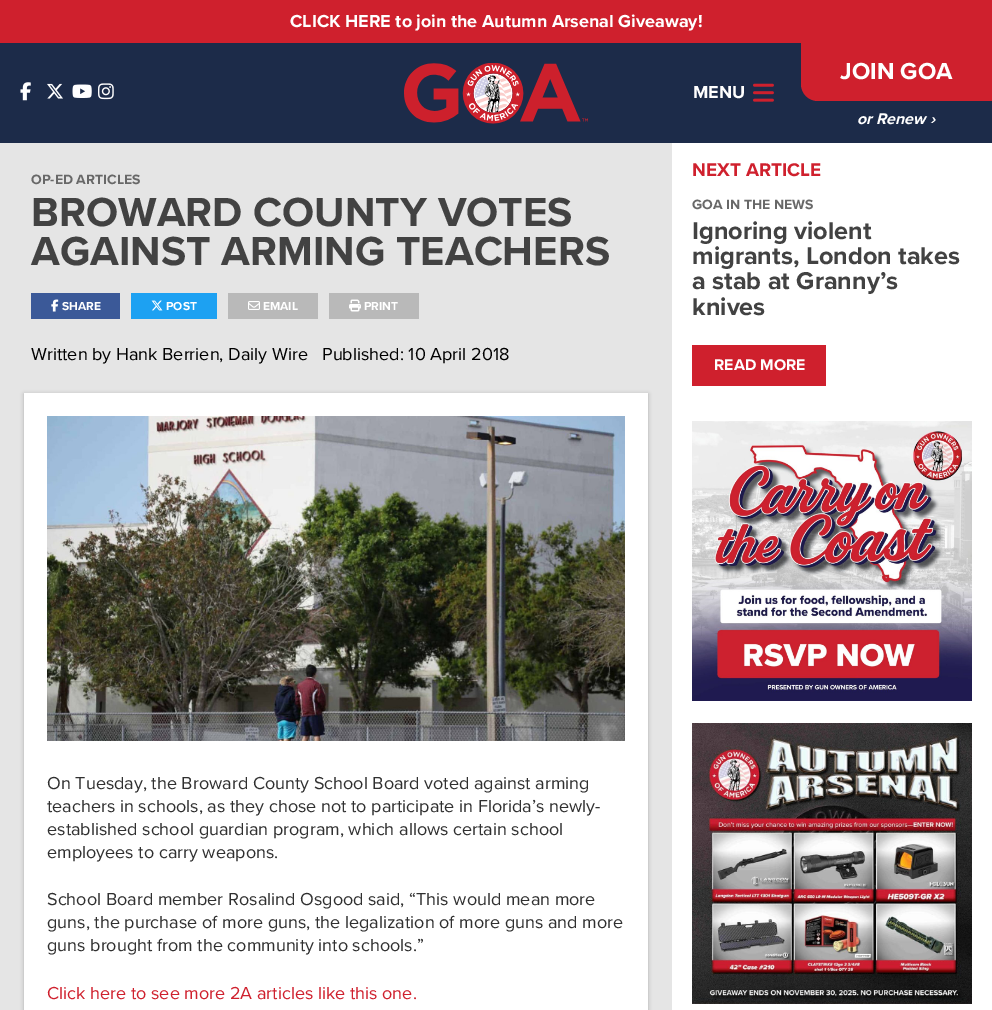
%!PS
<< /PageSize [992 1010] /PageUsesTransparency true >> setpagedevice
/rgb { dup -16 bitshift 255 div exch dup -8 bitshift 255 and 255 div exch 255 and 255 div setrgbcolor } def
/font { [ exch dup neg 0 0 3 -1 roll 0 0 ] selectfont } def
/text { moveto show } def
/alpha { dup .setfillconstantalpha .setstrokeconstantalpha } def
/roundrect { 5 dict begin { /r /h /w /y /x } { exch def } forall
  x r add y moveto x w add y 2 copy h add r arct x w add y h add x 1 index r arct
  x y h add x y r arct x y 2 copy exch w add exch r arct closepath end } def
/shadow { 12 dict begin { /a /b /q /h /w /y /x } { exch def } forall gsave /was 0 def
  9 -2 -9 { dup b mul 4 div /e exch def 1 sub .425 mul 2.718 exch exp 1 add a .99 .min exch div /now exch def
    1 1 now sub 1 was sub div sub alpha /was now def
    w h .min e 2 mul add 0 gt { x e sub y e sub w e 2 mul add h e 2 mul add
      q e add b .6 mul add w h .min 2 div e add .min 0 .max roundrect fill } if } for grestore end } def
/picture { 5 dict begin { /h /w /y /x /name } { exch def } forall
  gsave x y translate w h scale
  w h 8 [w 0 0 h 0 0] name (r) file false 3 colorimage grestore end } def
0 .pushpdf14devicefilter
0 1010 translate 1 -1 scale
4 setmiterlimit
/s1 { /ProximaNova-Bold 18 font 16#FFFFFF rgb } def
/s2 { /ProximaNova-Bold 24 font 16#FFFFFF rgb } def
/s3 { /ProximaNova-BoldItalic 16 font 16#FFFFFF rgb } def
/s4 { /ProximaNova-Bold 14 font 16#686868 rgb } def
/s5 { /ProximaNova-Bold 42 font 16#424242 rgb } def
/s6 { /ProximaNova-Bold 12 font 16#FFFFFF rgb } def
/s7 { /ProximaNova-Regular 18 font 16#000000 rgb } def
/s8 { /ProximaNova-Regular 18 font 16#303030 rgb } def
/s9 { /ProximaNova-Regular 18 font 16#CF202D rgb } def
/s10 { /ProximaNova-Bold 19 font 16#CF202D rgb } def
/s11 { /ProximaNova-Bold 25.25 font 16#424242 rgb } def
/s12 { /ProximaNova-Bold 16 font 16#FFFFFF rgb } def
16#FFFFFF rgb
0 0 992 1010 rectfill
16#CF202D rgb
0 0 992 43 rectfill
s1
(CLICK HERE to join the Autumn Arsenal Giveaway!) 290 27 text
16#1C2B49 rgb
0 43 992 100 rectfill
s1
(MENU) 693 98 text
(pic1.raw) 753 83 21 19 picture
(pic2.raw) 404 63 184 61 picture
(pic3.raw) 20 82 11 19 picture
(pic4.raw) 47 83 16 16 picture
(pic5.raw) 72 84 20 14 picture
(pic6.raw) 98 83 16 17 picture
16#CF202D rgb
801 43 moveto 992 43 lineto 992 101 lineto 818 101 lineto 808.5 101 801 93.5 801 84 curveto closepath fill
s2
(JOIN GOA) 840 79 text
s3
(or Renew ›) 857 124 text
16#E5E5E5 rgb
0 143 672 867 rectfill
s4
(OP-ED ARTICLES) 31 184 text
s5
(BROWARD COUNTY VOTES) 31 226 text
(AGAINST ARMING TEACHERS) 31 265 text
16#3B5998 rgb
31 293 89 26 rectfill
(pic7.raw) 51 299 8 13 picture
s6
(SHARE) 62 310 text
16#1DA1F2 rgb
131 293 86 26 rectfill
(pic8.raw) 151 300 12 11 picture
s6
(POST) 166 310 text
16#B9B9B9 rgb
228 293 90 26 rectfill
(pic9.raw) 248 301 12 9 picture
s6
(EMAIL) 263 310 text
16#B9B9B9 rgb
329 293 90 26 rectfill
(pic10.raw) 349 299 12 13 picture
s6
(PRINT) 364 310 text
s7
(Written by Hank Berrien, Daily Wire) 31 360 text
(Published: 10 April 2018) 322 360 text
24 394 624 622 0 2 0.25 shadow
16#FFFFFF rgb
24 393 624 617 rectfill
(pic11.raw) 47 416 578 325 picture
s8
(On Tuesday, the Broward County School Board voted against arming) 47 789 text
(teachers in schools, as they chose not to participate in Florida’s newly-) 47 812 text
(established school guardian program, which allows certain school) 47 835 text
(employees to carry weapons.) 47 858 text
(School Board member Rosalind Osgood said, “This would mean more) 47 905 text
(guns, the purchase of more guns, the legalization of more guns and more) 47 928 text
(guns brought from the community into schools.”) 47 951 text
s9
(Click here to see more 2A articles like this one.) 47 999 text
s10
(NEXT ARTICLE) 692 176 text
s4
(GOA IN THE NEWS) 692 209 text
s11
(Ignoring violent) 692 239 text
(migrants, London takes) 692 264 text
(a stab at Granny’s) 692 289 text
(knives) 692 315 text
16#CF202D rgb
692 345 134 41 rectfill
s12
(READ MORE) 714 370 text
(pic12.raw) 692 421 280 280 picture
(pic13.raw) 692 723 280 281 picture
.poppdf14devicefilter showpage
